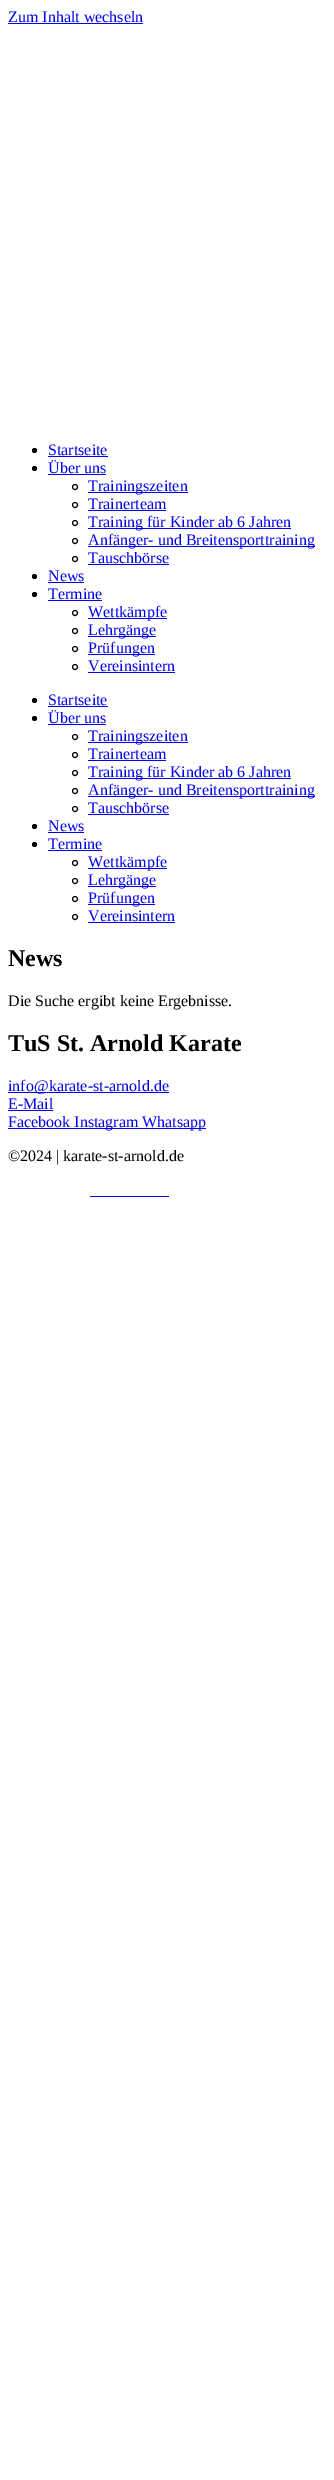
%!PS
<< /PageSize [334 2480] >> setpagedevice
/rgb { dup -16 bitshift 255 div exch dup -8 bitshift 255 and 255 div exch 255 and 255 div setrgbcolor } def
/font { [ exch dup neg 0 0 3 -1 roll 0 0 ] selectfont } def
/text { moveto show } def
/circle { newpath 0 360 arc closepath } def
0 2480 translate 1 -1 scale
4 setmiterlimit
/s1 { /LiberationSerif-Regular 16 font 16#0000EE rgb } def
/s2 { /LiberationSerif-Bold 24 font 16#000000 rgb } def
/s3 { /LiberationSerif-Regular 16 font 16#000000 rgb } def
16#FFFFFF rgb
0 0 334 2480 rectfill
s1
(Zum Inhalt wechseln) 8 22 text
8 23 135 1 rectfill
16#000000 rgb
34.5 450.5 2.5 circle fill
s1
(Startseite) 48 455 text
48 456 60 1 rectfill
16#000000 rgb
34.5 468.5 2.5 circle fill
s1
(Über uns) 48 473 text
48 474 58 1 rectfill
16#000000 rgb
75 487 2.5 circle stroke
16#0000EE rgb
88 492 100 1 rectfill
(Trainingszeiten) 88 491 text
16#000000 rgb
75 505 2.5 circle stroke
s1
(Trainerteam) 88 509 text
88 510 78 1 rectfill
16#000000 rgb
75 523 2.5 circle stroke
16#0000EE rgb
88 528 203 1 rectfill
(Training für Kinder ab 6 Jahren) 88 527 text
16#000000 rgb
75 541 2.5 circle stroke
16#0000EE rgb
88 546 227 1 rectfill
(Anfänger- und Breitensporttraining) 88 545 text
16#000000 rgb
75 559 2.5 circle stroke
s1
(Tauschbörse) 88 563 text
88 564 81 1 rectfill
16#000000 rgb
34.5 576.5 2.5 circle fill
s1
(News) 48 581 text
48 582 36 1 rectfill
16#000000 rgb
34.5 594.5 2.5 circle fill
s1
(Termine) 48 599 text
48 600 54 1 rectfill
16#000000 rgb
75 613 2.5 circle stroke
16#0000EE rgb
88 618 79 1 rectfill
(Wettkämpfe) 88 617 text
16#000000 rgb
75 631 2.5 circle stroke
16#0000EE rgb
88 636 68 1 rectfill
(Lehrgänge) 88 635 text
16#000000 rgb
75 649 2.5 circle stroke
16#0000EE rgb
88 654 67 1 rectfill
(Prüfungen) 88 653 text
16#000000 rgb
75 667 2.5 circle stroke
s1
(Vereinsintern) 88 671 text
88 672 87 1 rectfill
16#000000 rgb
34.5 700.5 2.5 circle fill
s1
(Startseite) 48 705 text
48 706 60 1 rectfill
16#000000 rgb
34.5 718.5 2.5 circle fill
s1
(Über uns) 48 723 text
48 724 58 1 rectfill
16#000000 rgb
75 737 2.5 circle stroke
16#0000EE rgb
88 742 100 1 rectfill
(Trainingszeiten) 88 741 text
16#000000 rgb
75 755 2.5 circle stroke
s1
(Trainerteam) 88 759 text
88 760 78 1 rectfill
16#000000 rgb
75 773 2.5 circle stroke
16#0000EE rgb
88 778 203 1 rectfill
(Training für Kinder ab 6 Jahren) 88 777 text
16#000000 rgb
75 791 2.5 circle stroke
16#0000EE rgb
88 796 227 1 rectfill
(Anfänger- und Breitensporttraining) 88 795 text
16#000000 rgb
75 809 2.5 circle stroke
s1
(Tauschbörse) 88 813 text
88 814 81 1 rectfill
16#000000 rgb
34.5 826.5 2.5 circle fill
s1
(News) 48 831 text
48 832 36 1 rectfill
16#000000 rgb
34.5 844.5 2.5 circle fill
s1
(Termine) 48 849 text
48 850 54 1 rectfill
16#000000 rgb
75 863 2.5 circle stroke
16#0000EE rgb
88 868 79 1 rectfill
(Wettkämpfe) 88 867 text
16#000000 rgb
75 881 2.5 circle stroke
16#0000EE rgb
88 886 68 1 rectfill
(Lehrgänge) 88 885 text
16#000000 rgb
75 899 2.5 circle stroke
16#0000EE rgb
88 904 67 1 rectfill
(Prüfungen) 88 903 text
16#000000 rgb
75 917 2.5 circle stroke
s1
(Vereinsintern) 88 921 text
88 922 87 1 rectfill
s2
(News) 8 966 text
s3
(Die Suche ergibt keine Ergebnisse.) 8 1006 text
s2
(TuS St. Arnold Karate) 8 1051 text
16#0000EE rgb
8 1092 161 1 rectfill
s1
(info@karate-st-arnold.de) 8 1091 text
(E-Mail) 8 1109 text
8 1110 45 1 rectfill
8 1128 198 1 rectfill
(Facebook Instagram Whatsapp) 8 1127 text
s3
(©2024 | karate-st-arnold.de) 8 1161 text
16#0000EE rgb
90 1196 79 1 rectfill
showpage
